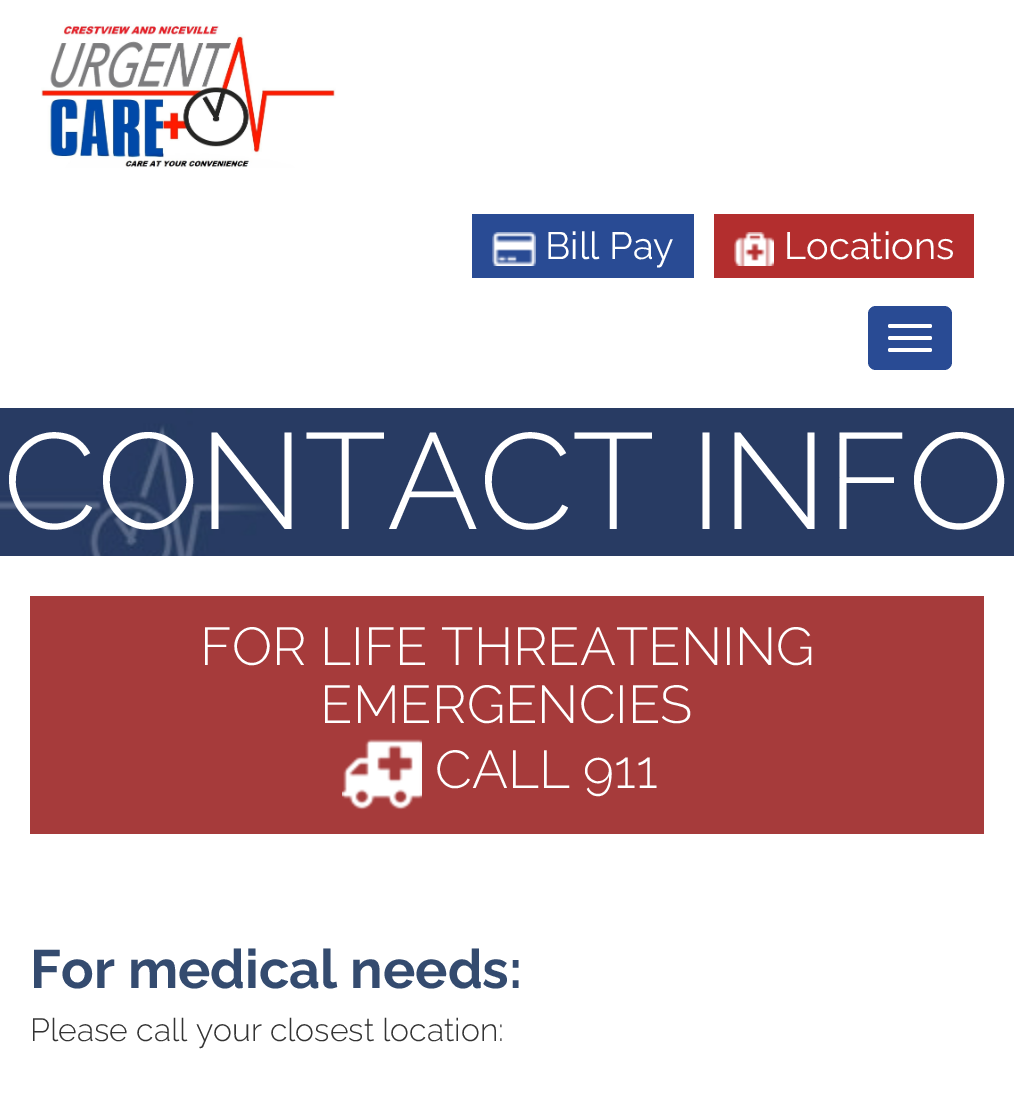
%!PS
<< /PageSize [1014 1103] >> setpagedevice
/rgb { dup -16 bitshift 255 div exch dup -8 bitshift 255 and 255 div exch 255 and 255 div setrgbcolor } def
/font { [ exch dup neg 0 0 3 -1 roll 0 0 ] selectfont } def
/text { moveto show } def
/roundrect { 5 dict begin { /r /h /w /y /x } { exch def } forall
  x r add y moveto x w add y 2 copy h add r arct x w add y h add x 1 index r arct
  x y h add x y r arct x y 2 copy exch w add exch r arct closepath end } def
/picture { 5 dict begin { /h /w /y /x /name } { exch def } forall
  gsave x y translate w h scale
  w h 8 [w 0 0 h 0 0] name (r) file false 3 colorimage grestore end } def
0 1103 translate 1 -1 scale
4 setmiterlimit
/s1 { /Raleway-Regular 38 font 16#FFFFFF rgb } def
/s2 { /Raleway-Light 136 font 16#FFFFFF rgb } def
/s3 { /Raleway-Light 53.25 font 16#FFFFFF rgb } def
/s4 { /Raleway-Bold 54 font 16#344B6F rgb } def
/s5 { /Raleway-Light 32 font 16#333333 rgb } def
16#FFFFFF rgb
0 0 1014 1103 rectfill
(pic1.raw) 41 24 295 144 picture
16#294B94 rgb
472 214 222 64 rectfill
(pic2.raw) 492 232 44 34 picture
s1
(Bill Pay) 545 259 text
16#B32E2E rgb
714 214 260 64 rectfill
(pic3.raw) 734 232 40 34 picture
s1
(Locations) 784 259 text
16#294B94 rgb
868 306 84 64 8 roundrect fill
16#FFFFFF rgb
888 324 44 4 2 roundrect fill
888 336 44 4 2 roundrect fill
888 348 44 4 2 roundrect fill
(pic4.raw) 0 408 1014 148 picture
s2
(CONTACT INFO) 3 529 text
16#A63B3B rgb
30 596 954 238 rectfill
s3
(FOR LIFE THREATENING) 200 665 text
(EMERGENCIES) 320 723 text
(pic5.raw) 342 739 80 71 picture
(CALL 911) 435 788 text
s4
(For medical needs:) 30 988 text
s5
(Please call your closest location:) 30 1041 text
showpage
